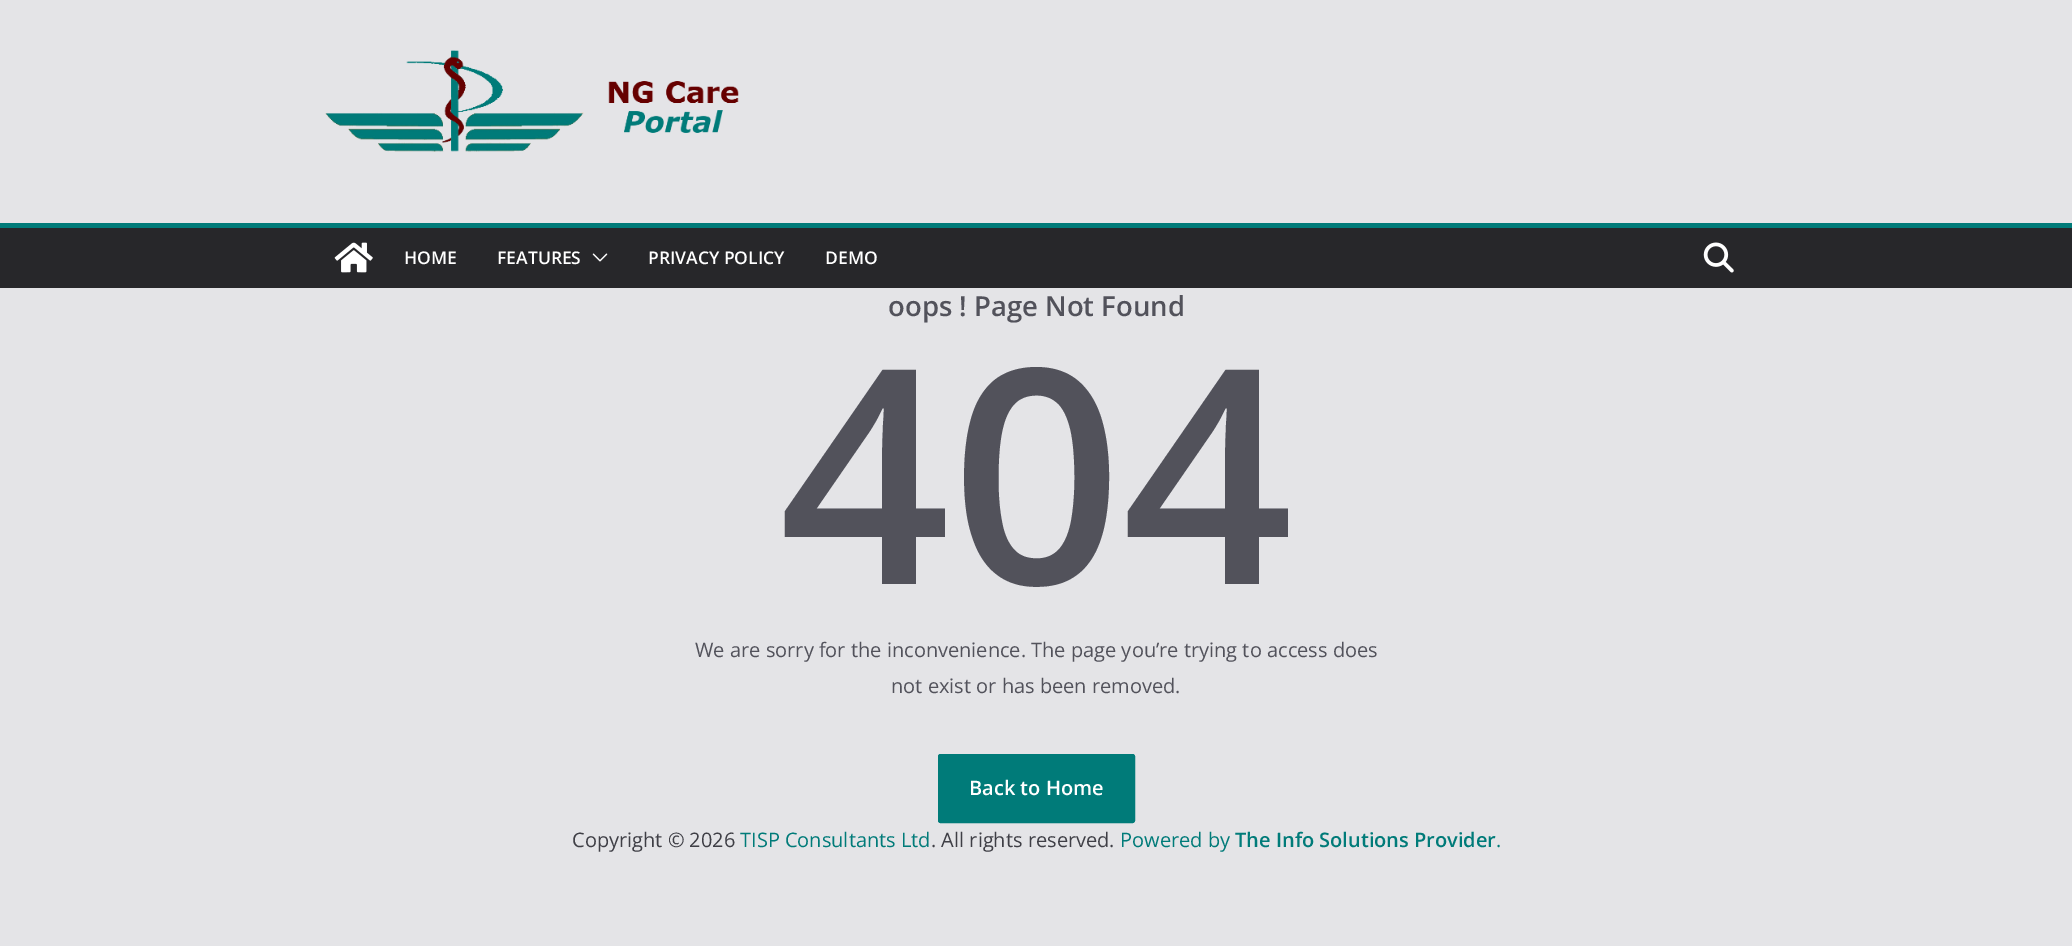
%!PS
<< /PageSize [2072 946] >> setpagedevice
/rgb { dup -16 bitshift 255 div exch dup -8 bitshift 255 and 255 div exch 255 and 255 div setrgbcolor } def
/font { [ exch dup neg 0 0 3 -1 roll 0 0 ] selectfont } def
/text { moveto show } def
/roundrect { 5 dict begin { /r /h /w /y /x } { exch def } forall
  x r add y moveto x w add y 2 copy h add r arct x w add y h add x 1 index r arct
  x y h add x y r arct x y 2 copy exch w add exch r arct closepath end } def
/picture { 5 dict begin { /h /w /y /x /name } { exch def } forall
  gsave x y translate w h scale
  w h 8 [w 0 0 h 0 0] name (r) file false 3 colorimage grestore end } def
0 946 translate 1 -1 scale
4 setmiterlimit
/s1 { /OpenSans-SemiBold 17.5 font 16#FFFFFF rgb } def
/s2 { /OpenSans-SemiBold 27.5 font 16#52525B rgb } def
/s3 { /OpenSans-SemiBold 300 font 16#52525B rgb } def
/s4 { /OpenSans-Regular 20 font 16#52525B rgb } def
/s5 { /OpenSans-SemiBold 20 font 16#FFFFFF rgb } def
/s6 { /OpenSans-Regular 20 font 16#3F3F46 rgb } def
/s7 { /OpenSans-Regular 20 font 16#007B79 rgb } def
/s8 { /OpenSans-SemiBold 20 font 16#007B79 rgb } def
16#E4E4E7 rgb
0 0 2072 946 rectfill
(pic1.raw) 325 50 414 102 picture
16#27272A rgb
0 228 2072 60 rectfill
16#007B79 rgb
0 223 2072 5 rectfill
(pic2.raw) 334 242 39 31 picture
s1
(HOME) 404 264 text
(FEATURES) 497 264 text
(pic3.raw) 592 253 16 9 picture
(PRIVACY POLICY) 648 264 text
(DEMO) 825 264 text
(pic4.raw) 1703 242 31 31 picture
s2
(oops ! Page Not Found) 888 316 text
s3
(404) 779 584 text
s4
(We are sorry for the inconvenience. The page you’re trying to access does) 695 657 text
(not exist or has been removed.) 891 693 text
16#007B79 rgb
938.5 754.5 196 68 2 roundrect gsave fill grestore
stroke
s5
(Back to Home) 969 795 text
s6
(Copyright © 2026) 572 847 text
s7
(TISP Consultants Ltd) 740 847 text
s6
(. All rights reserved.) 931 847 text
s7
(Powered by) 1120 847 text
s8
(The Info Solutions Provider) 1235 847 text
s7
(.) 1496 847 text
showpage
